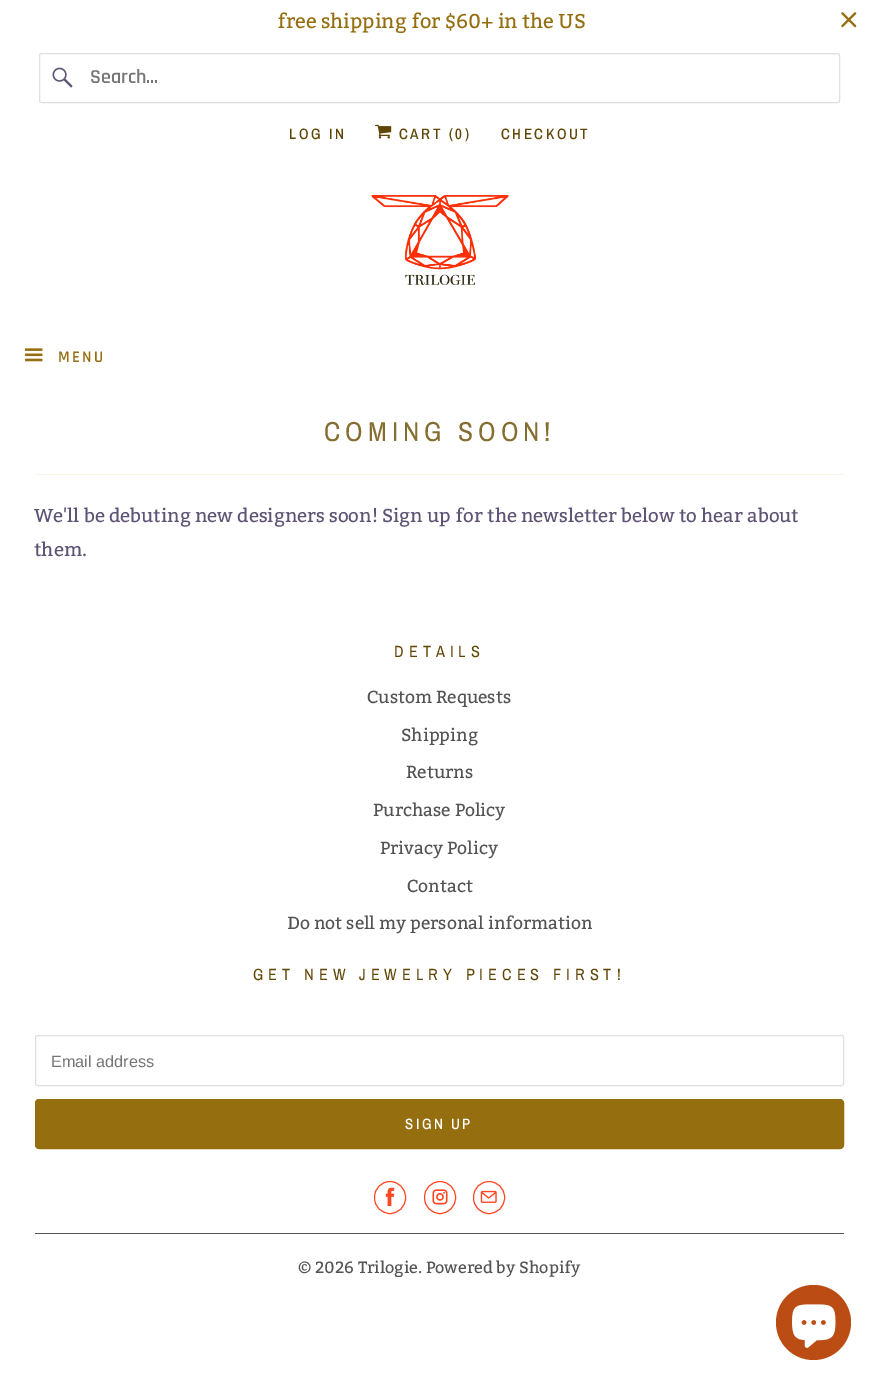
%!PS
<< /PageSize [878 1386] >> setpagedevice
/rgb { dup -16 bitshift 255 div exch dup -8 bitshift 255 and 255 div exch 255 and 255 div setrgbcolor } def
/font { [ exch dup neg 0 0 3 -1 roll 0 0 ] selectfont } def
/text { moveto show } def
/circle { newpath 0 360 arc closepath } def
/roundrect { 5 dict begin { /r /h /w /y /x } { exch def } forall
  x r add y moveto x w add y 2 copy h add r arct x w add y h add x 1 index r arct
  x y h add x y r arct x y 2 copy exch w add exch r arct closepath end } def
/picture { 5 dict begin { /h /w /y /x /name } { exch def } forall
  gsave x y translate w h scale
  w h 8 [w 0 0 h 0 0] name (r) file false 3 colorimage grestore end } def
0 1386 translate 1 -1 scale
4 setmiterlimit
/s1 { /Bitter-Regular 20 font 16#946E0F rgb } def
/s2 { /Rajdhani-SemiBold 20 font 16#757575 rgb } def
/s3 { /Bitter-Regular 18.75 font 16#605476 rgb } def
/s4 { /Bitter-Regular 17.5 font 16#545454 rgb } def
/s5 { /LiberationSans-Regular 16.25 font 16#757575 rgb } def
/s6 { /Bitter-Regular 16.25 font 16#545454 rgb } def
16#FFFFFF rgb
0 0 878 1386 rectfill
s1
(free shipping for $60+ in the US) 277 28 text
(pic1.raw) 841 12 16 16 picture
16#DFDFDF rgb
39.5 53.5 800 49 2 roundrect stroke
(pic2.raw) 52 67 21 21 picture
s2
(Search...) 90 83 text
/ArchivoNarrow-Medium 15 font
16#604605 rgb
289 139 moveto 2.5 0 (LOG IN) ashow
(pic3.raw) 375 124 17 15 picture
399 139 moveto 2.5 0 (CART \(0\)) ashow
501 139 moveto 2.5 0 (CHECKOUT) ashow
(pic4.raw) 371 195 138 90 picture
(pic5.raw) 25 348 18 14 picture
/Rajdhani-SemiBold 16.25 font
16#946E0F rgb
58 362 moveto 2.5 0 (MENU) ashow
16#FAF4E6 rgb
35 474 809 1 rectfill
/ArchivoNarrow-Regular 27.5 font
16#856D30 rgb
324 441 moveto 5 0 (COMING SOON!) ashow
s3
(We'll be debuting new designers soon! Sign up for the newsletter below to hear about) 34 522 text
(them.) 34 556 text
/ArchivoNarrow-Regular 16.25 font
16#604605 rgb
394 657 moveto 5 0 (DETAILS) ashow
s4
(Custom Requests) 367 703 text
(Shipping) 401 741 text
(Returns) 406 778 text
(Purchase Policy) 373 816 text
(Privacy Policy) 380 854 text
(Contact) 407 892 text
(Do not sell my personal information) 287 929 text
/ArchivoNarrow-Regular 16.25 font
16#604605 rgb
253 980 moveto 5 0 (GET NEW JEWELRY PIECES FIRST!) ashow
16#DFDFDF rgb
35.5 1035.5 808 50 2 roundrect stroke
s5
(Email address) 51 1067 text
16#946E0F rgb
35.5 1099.5 808 49 3.5 roundrect gsave fill grestore
stroke
/ArchivoNarrow-Medium 15 font
16#FFFFFF rgb
405 1129 moveto 2.5 0 (SIGN UP) ashow
16#FF4723 rgb
374.5 1181.5 31 32 15.5 roundrect stroke
(pic6.raw) 385 1187 10 19 picture
424.5 1181.5 31 32 15.5 roundrect stroke
(pic7.raw) 432 1189 16 16 picture
473.5 1181.5 31 32 15.5 roundrect stroke
(pic8.raw) 480 1190 17 13 picture
16#545454 rgb
35 1233 809 1 rectfill
s6
(© 2026 Trilogie. Powered by Shopify) 298 1273 text
16#BB4D14 rgb
813.5 1322.5 37.5 circle fill
(pic9.raw) 792 1304 44 44 picture
showpage
